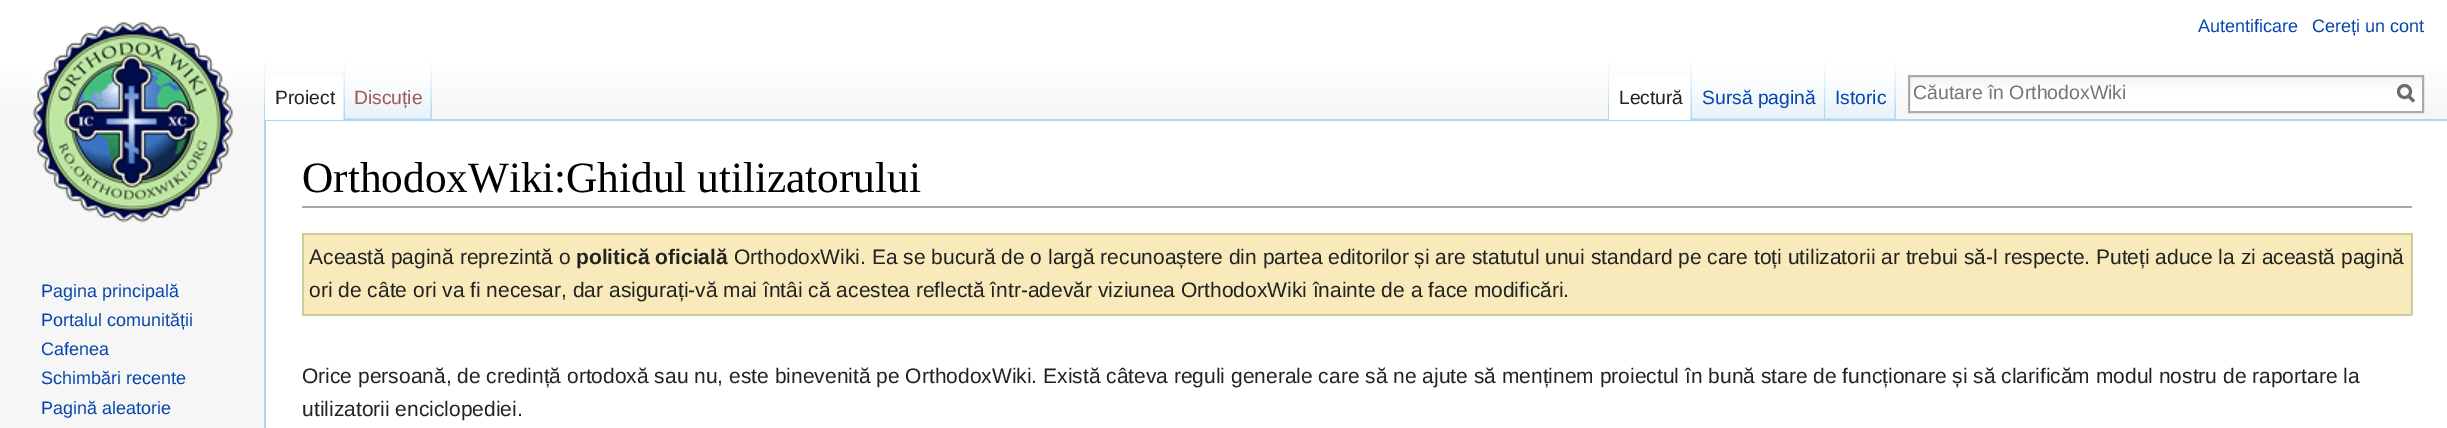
%!PS
<< /PageSize [2447 428] >> setpagedevice
/rgb { dup -16 bitshift 255 div exch dup -8 bitshift 255 and 255 div exch 255 and 255 div setrgbcolor } def
/font { [ exch dup neg 0 0 3 -1 roll 0 0 ] selectfont } def
/text { moveto show } def
/circle { newpath 0 360 arc closepath } def
/picture { 5 dict begin { /h /w /y /x /name } { exch def } forall
  gsave x y translate w h scale
  w h 8 [w 0 0 h 0 0] name (r) file false 3 colorimage grestore end } def
0 428 translate 1 -1 scale
4 setmiterlimit
/s1 { /LiberationSans-Regular 18 font 16#0645AD rgb } def
/s2 { /LiberationSans-Regular 19.25 font 16#222222 rgb } def
/s3 { /LiberationSans-Regular 19.25 font 16#A55858 rgb } def
/s4 { /LiberationSans-Regular 19.25 font 16#0645AD rgb } def
/s5 { /LiberationSans-Regular 19.5 font 16#72777D rgb } def
/s6 { /LiberationSerif-Regular 43.25 font 16#000000 rgb } def
/s7 { /LiberationSans-Regular 21 font 16#222222 rgb } def
/s8 { /LiberationSans-Bold 21 font 16#222222 rgb } def
16#F6F6F6 rgb
0 0 2447 428 rectfill
gsave 0 0 moveto 2447 0 lineto 2447 103 lineto 0 103 lineto closepath clip newpath
<< /ShadingType 2 /ColorSpace /DeviceRGB /Coords [1224 0 1224 120] /Extend [true true] /Function << /FunctionType 3 /Domain [0 1] /Functions [<< /FunctionType 2 /Domain [0 1] /C0 [1 1 1] /C1 [1 1 1] /N 1 >> << /FunctionType 2 /Domain [0 1] /C0 [1 1 1] /C1 [0.965 0.965 0.965] /N 1 >>] /Bounds [0.5] /Encode [0 1 0 1] >> >> shfill grestore
s1
(Autentificare) 2198 32 text
(Cereți un cont) 2312 32 text
(pic1.raw) 264 60 1 59 picture
16#A7D7F9 rgb
264 119 2183 2 rectfill
264 119 2 309 rectfill
16#FFFFFF rgb
265 77 79 43 rectfill
(pic2.raw) 343 60 2 60 picture
s2
(Proiect) 275 104 text
(pic3.raw) 345 60 87 60 picture
(pic4.raw) 430 60 2 59 picture
s3
(Discuție) 354 104 text
(pic1.raw) 1608 60 1 59 picture
16#FFFFFF rgb
1609 77 82 43 rectfill
(pic2.raw) 1690 60 2 60 picture
s2
(Lectură) 1619 104 text
(pic5.raw) 1692 60 134 60 picture
(pic6.raw) 1824 60 2 60 picture
s4
(Sursă pagină) 1702 104 text
(pic7.raw) 1825 60 71 60 picture
(pic4.raw) 1894 60 2 59 picture
(Istoric) 1835 104 text
16#FFFFFF rgb
1910 89 512 22 rectfill
(pic8.raw) 1910 77 512 12 picture
16#AAAAAA rgb
2 setlinewidth
1909 76 514 36 rectstroke
s5
(Căutare în OrthodoxWiki) 1913 99 text
16#6C6C6C rgb
3 setlinewidth
2414 101.5 moveto 2408 95.5 lineto stroke
2404.5 91.5 6 circle stroke
(pic9.raw) 32 22 201 201 picture
s1
(Pagina principală) 41 297 text
(Portalul comunității) 41 326 text
(Cafenea) 41 355 text
(Schimbări recente) 41 384 text
(Pagină aleatorie) 41 414 text
16#FFFFFF rgb
266 121 2181 307 rectfill
16#A2A9B1 rgb
302 206 2110 2 rectfill
s6
(OrthodoxWiki:Ghidul utilizatorului) 302 192 text
16#F8EABA rgb
304 235 2107 79 rectfill
16#CCCC99 rgb
302 233 2110 2 rectfill
2411 233 2 82 rectfill
302 314 2110 2 rectfill
302 233 2 82 rectfill
s7
(Această pagină reprezintă o) 309 264 text
s8
(politică oficială) 576 264 text
s7
(OrthodoxWiki. Ea se bucură de o largă recunoaștere din partea editorilor și are statutul unui standard pe care toți utilizatorii ar trebui să-l respecte. Puteți aduce la zi această pagină) 734 264 text
(ori de câte ori va fi necesar, dar asigurați-vă mai întâi că acestea reflectă într-adevăr viziunea OrthodoxWiki înainte de a face modificări.) 309 297 text
(Orice persoană, de credință ortodoxă sau nu, este binevenită pe OrthodoxWiki. Există câteva reguli generale care să ne ajute să menținem proiectul în bună stare de funcționare și să clarificăm modul nostru de raportare la) 302 383 text
(utilizatorii enciclopediei.) 302 416 text
showpage
